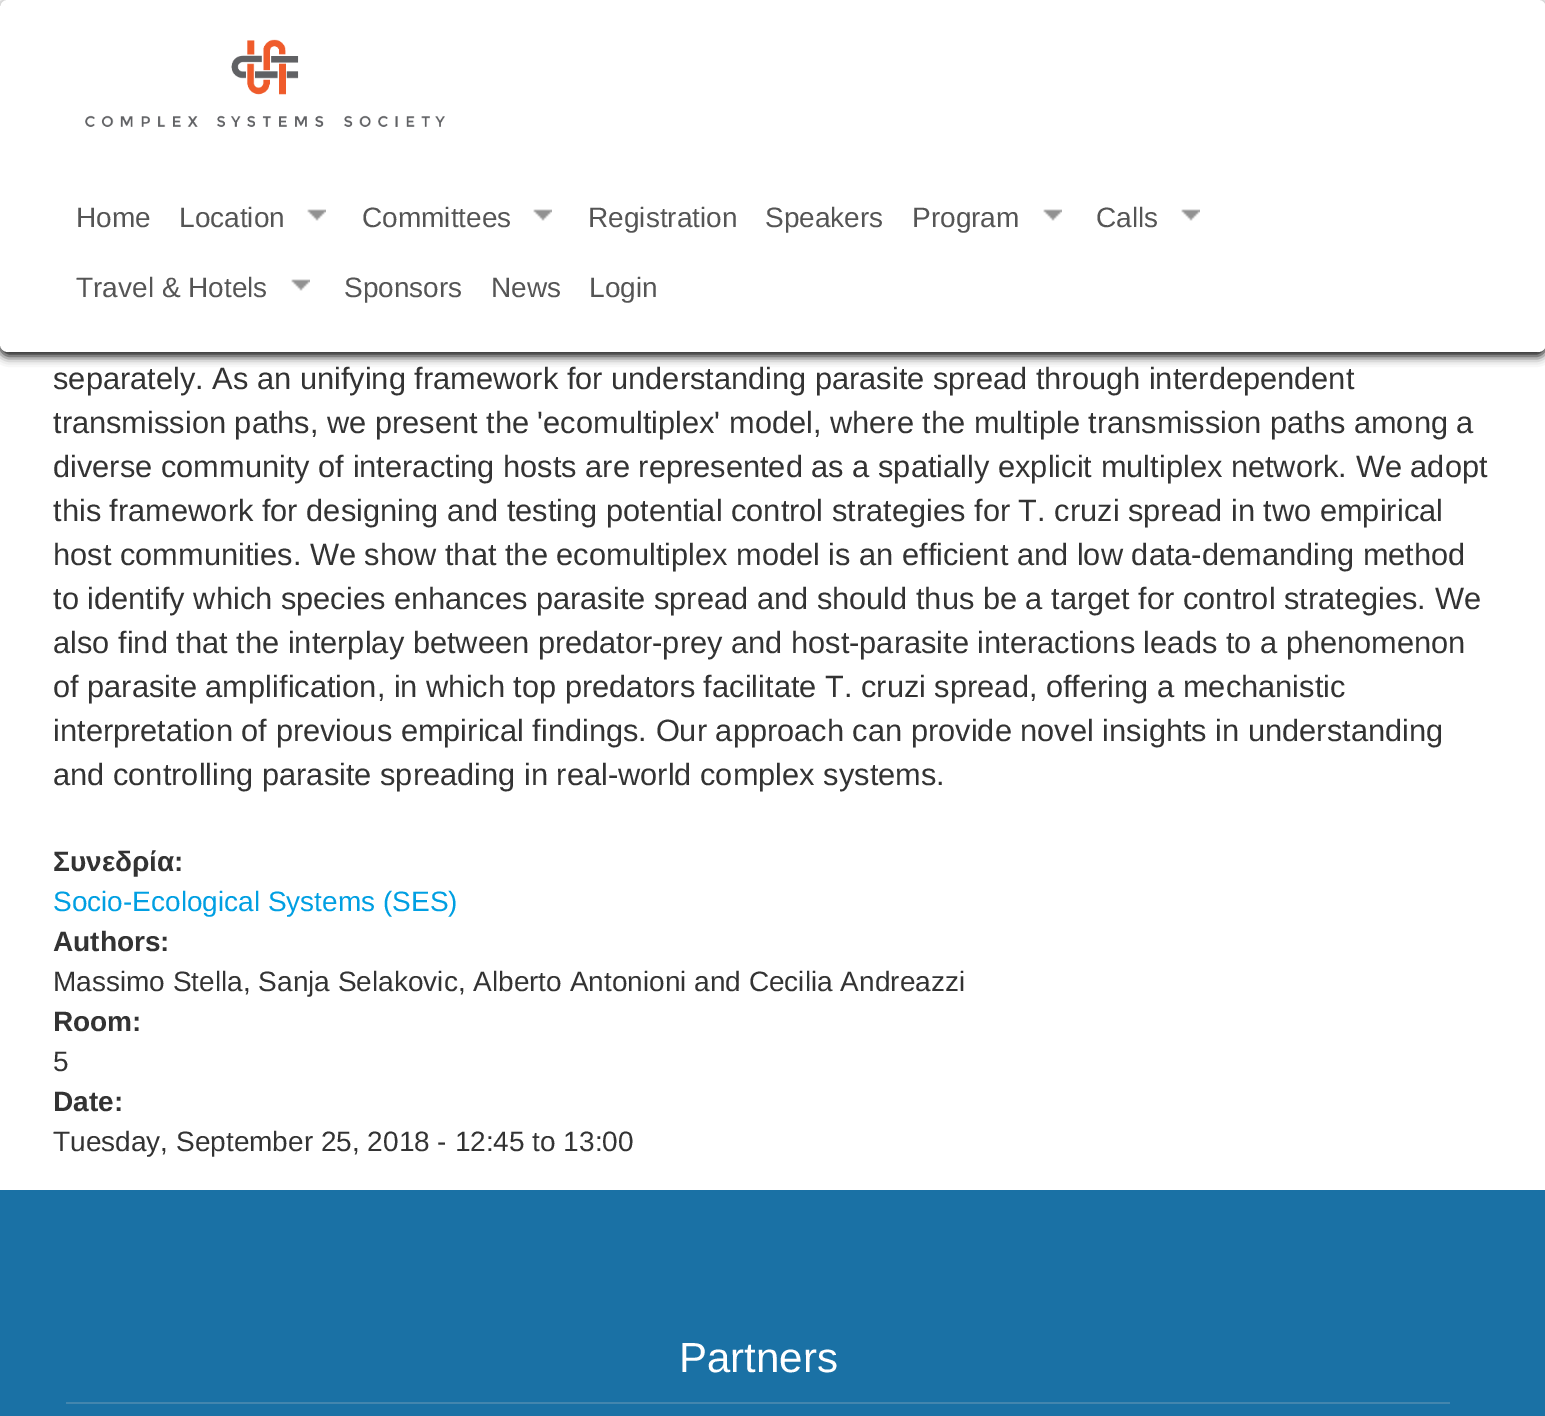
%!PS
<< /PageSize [1545 1416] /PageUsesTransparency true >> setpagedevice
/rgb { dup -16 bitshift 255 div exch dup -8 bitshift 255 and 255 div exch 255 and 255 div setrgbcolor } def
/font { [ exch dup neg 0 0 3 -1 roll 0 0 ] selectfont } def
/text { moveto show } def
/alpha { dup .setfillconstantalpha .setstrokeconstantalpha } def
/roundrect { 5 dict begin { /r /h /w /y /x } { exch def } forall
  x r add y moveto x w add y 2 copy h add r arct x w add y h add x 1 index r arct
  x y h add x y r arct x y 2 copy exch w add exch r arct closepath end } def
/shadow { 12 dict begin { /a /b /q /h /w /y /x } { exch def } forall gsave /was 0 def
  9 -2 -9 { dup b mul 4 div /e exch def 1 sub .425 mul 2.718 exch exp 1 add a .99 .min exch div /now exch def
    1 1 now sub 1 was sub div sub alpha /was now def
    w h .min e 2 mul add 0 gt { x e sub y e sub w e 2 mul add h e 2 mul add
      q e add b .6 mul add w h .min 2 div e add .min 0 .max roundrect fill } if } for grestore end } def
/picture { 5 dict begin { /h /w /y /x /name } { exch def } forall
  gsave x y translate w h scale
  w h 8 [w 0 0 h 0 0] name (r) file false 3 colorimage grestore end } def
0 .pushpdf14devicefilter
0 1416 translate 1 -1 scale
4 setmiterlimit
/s1 { /LiberationSans-Regular 28 font 16#555555 rgb } def
/s2 { /LiberationSans-Regular 30.8 font 16#333333 rgb } def
/s3 { /LiberationSans-Bold 28 font 16#333333 rgb } def
/s4 { /LiberationSans-Regular 28 font 16#009FE2 rgb } def
/s5 { /LiberationSans-Regular 28 font 16#333333 rgb } def
/s6 { /LiberationSans-Regular 42 font 16#FFFFFF rgb } def
16#FFFFFF rgb
0 0 1545 1416 rectfill
16#000000 rgb
0 4 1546 352 8 5 1 shadow
16#FFFFFF rgb
0 0 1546 352 8 roundrect fill
(pic1.raw) 85 39 360 88 picture
s1
(Home) 76 227 text
(Location) 179 227 text
(pic2.raw) 307 209 19 12 picture
(Committees) 362 227 text
(pic2.raw) 533 209 19 12 picture
(Registration) 588 227 text
(Speakers) 765 227 text
(Program) 912 227 text
(pic2.raw) 1043 209 19 12 picture
(Calls) 1096 227 text
(pic2.raw) 1181 209 19 12 picture
(Travel & Hotels) 76 297 text
(pic2.raw) 291 279 19 12 picture
(Sponsors) 344 297 text
(News) 491 297 text
(Login) 589 297 text
s2
(separately. As an unifying framework for understanding parasite spread through interdependent) 53 389 text
(transmission paths, we present the 'ecomultiplex' model, where the multiple transmission paths among a) 53 433 text
(diverse community of interacting hosts are represented as a spatially explicit multiplex network. We adopt) 53 477 text
(this framework for designing and testing potential control strategies for T. cruzi spread in two empirical) 53 521 text
(host communities. We show that the ecomultiplex model is an efficient and low data-demanding method) 53 565 text
(to identify which species enhances parasite spread and should thus be a target for control strategies. We) 53 609 text
(also find that the interplay between predator-prey and host-parasite interactions leads to a phenomenon) 53 653 text
(of parasite amplification, in which top predators facilitate T. cruzi spread, offering a mechanistic) 53 697 text
(interpretation of previous empirical findings. Our approach can provide novel insights in understanding) 53 741 text
(and controlling parasite spreading in real-world complex systems.) 53 785 text
s3
(Συνεδρία:) 53 871 text
s4
(Socio-Ecological Systems \(SES\)) 53 911 text
s3
(Authors:) 53 951 text
s5
(Massimo Stella, Sanja Selakovic, Alberto Antonioni and Cecilia Andreazzi) 53 991 text
s3
(Room:) 53 1031 text
s5
(5) 53 1071 text
s3
(Date:) 53 1111 text
s5
(Tuesday, September 25, 2018 - 12:45 to 13:00) 53 1151 text
16#1A71A5 rgb
0 1190 1545 226 rectfill
16#4386AE rgb
66 1402 1384 2 rectfill
s6
(Partners) 679 1372 text
.poppdf14devicefilter showpage
